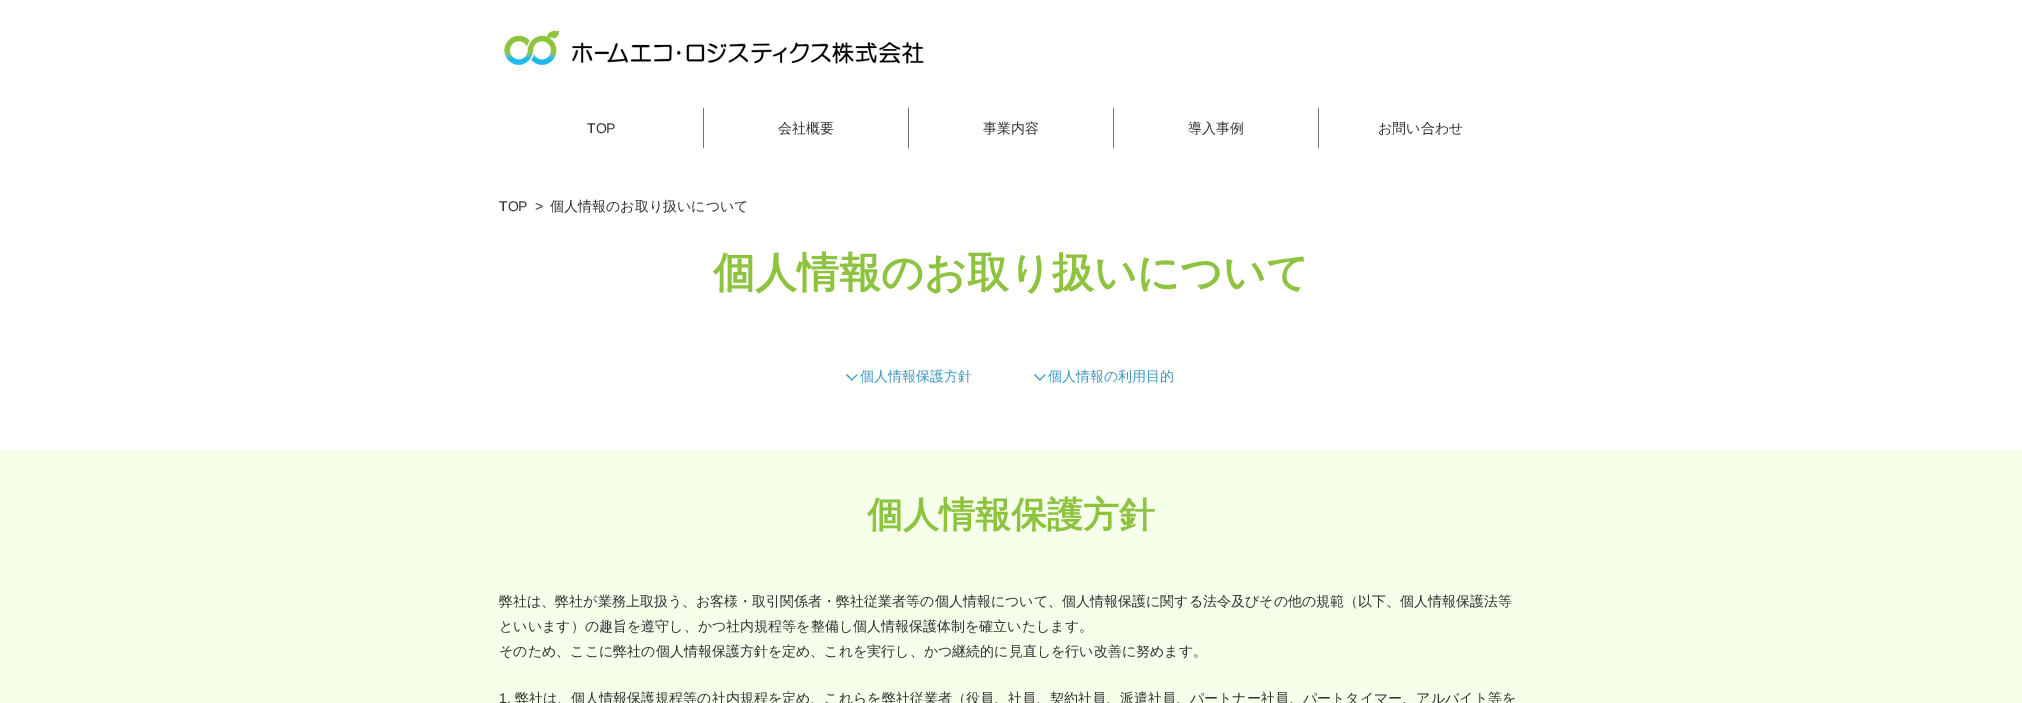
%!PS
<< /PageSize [2022 703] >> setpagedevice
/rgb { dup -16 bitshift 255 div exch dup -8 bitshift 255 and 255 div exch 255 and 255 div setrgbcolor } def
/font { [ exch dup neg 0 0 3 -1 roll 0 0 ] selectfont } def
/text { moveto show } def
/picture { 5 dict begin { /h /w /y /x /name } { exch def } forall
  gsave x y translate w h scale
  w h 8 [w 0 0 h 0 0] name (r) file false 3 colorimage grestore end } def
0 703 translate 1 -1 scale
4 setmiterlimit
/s1 { /LiberationSans-Regular 14 font 16#333333 rgb } def
/s2 { /WenQuanYiZenHei-Medium 14 font 16#333333 rgb } def
/s3 { /WenQuanYiZenHei-Bold 42 font 16#8DC33E rgb } def
/s4 { /WenQuanYiZenHei-Medium 14 font 16#3E9AC3 rgb } def
/s5 { /WenQuanYiZenHei-Bold 36 font 16#8DC33E rgb } def
16#FFFFFF rgb
0 0 2022 703 rectfill
(pic1.raw) 504 30 420 35 picture
s1
(TOP) 587 133 text
16#707070 rgb
703 108 1 40 rectfill
s2
(会社概要) 778 133 text
16#707070 rgb
908 108 1 40 rectfill
s2
(事業内容) 983 133 text
16#707070 rgb
1113 108 1 40 rectfill
s2
(導入事例) 1188 133 text
16#707070 rgb
1318 108 1 40 rectfill
s2
(お問い合わせ) 1378 133 text
s1
(TOP) 499 211 text
(>) 535 211 text
s2
(個人情報のお取り扱いについて) 550 211 text
s3
(個人情報のお取り扱いについて) 713 287 text
16#3E9AC3 rgb
857.5 375 moveto 852 380.5 lineto 851 380 lineto 857 374 lineto closepath fill
852.5 380 moveto 852 380.5 lineto 846 375 lineto 847 374 lineto closepath fill
s4
(個人情報保護方針) 860 381 text
1045.5 375 moveto 1040 380.5 lineto 1039 380 lineto 1045 374 lineto closepath fill
1040.5 380 moveto 1040 380.5 lineto 1034 375 lineto 1035 374 lineto closepath fill
(個人情報の利用目的) 1048 381 text
16#F5FFEA rgb
0 450 2022 253 rectfill
s5
(個人情報保護方針) 867 527 text
s2
(弊社は、弊社が業務上取扱う、お客様・取引関係者・弊社従業者等の個人情報について、個人情報保護に関する法令及びその他の規範（以下、個人情報保護法等) 499 606 text
(といいます）の趣旨を遵守し、かつ社内規程等を整備し個人情報保護体制を確立いたします。) 499 631 text
(そのため、ここに弊社の個人情報保護方針を定め、これを実行し、かつ継続的に見直しを行い改善に努めます。) 499 656 text
s1
(1.) 499 703 text
s2
(弊社は、個人情報保護規程等の社内規程を定め、これらを弊社従業者（役員、社員、契約社員、派遣社員、パートナー社員、パートタイマー、アルバイト等を) 515 703 text
showpage
